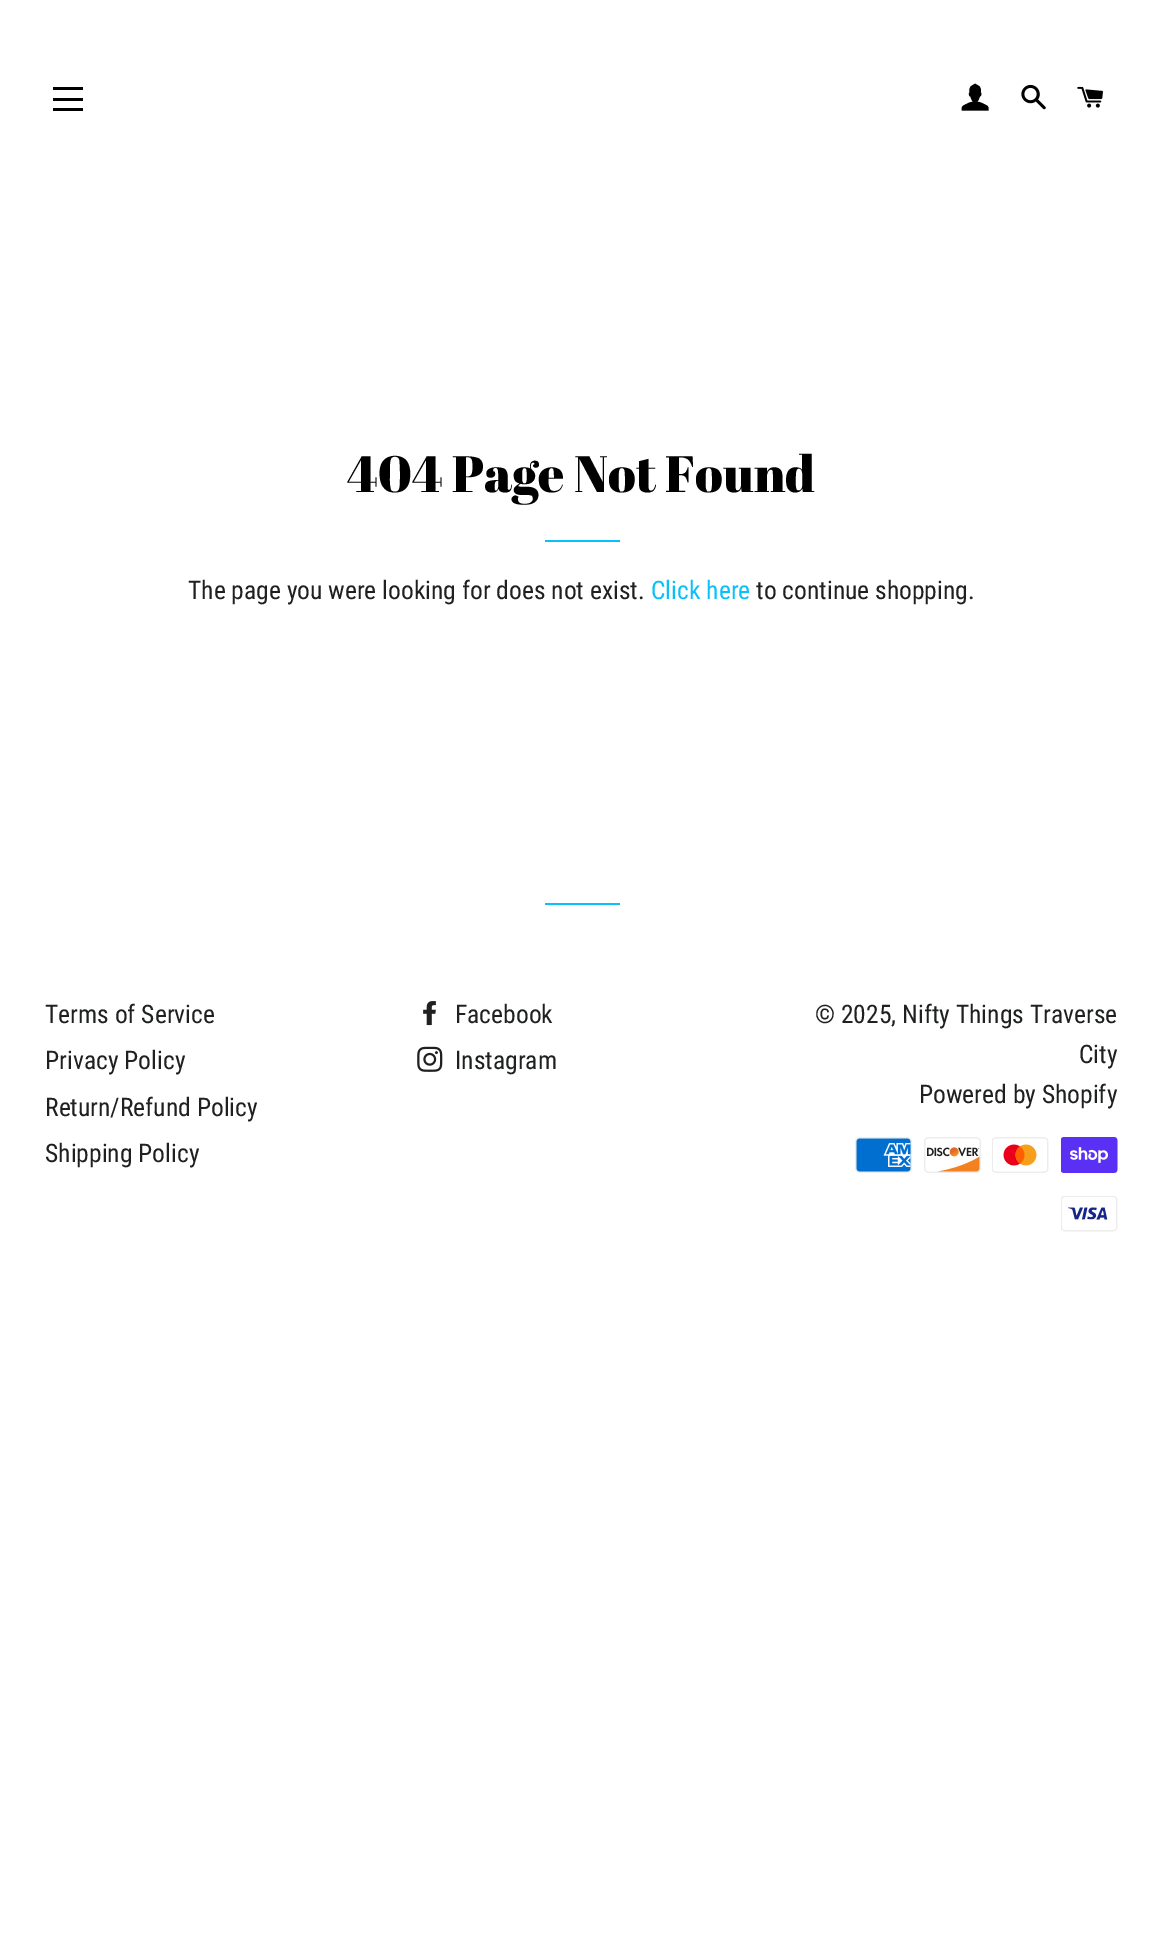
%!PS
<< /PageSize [1162 1947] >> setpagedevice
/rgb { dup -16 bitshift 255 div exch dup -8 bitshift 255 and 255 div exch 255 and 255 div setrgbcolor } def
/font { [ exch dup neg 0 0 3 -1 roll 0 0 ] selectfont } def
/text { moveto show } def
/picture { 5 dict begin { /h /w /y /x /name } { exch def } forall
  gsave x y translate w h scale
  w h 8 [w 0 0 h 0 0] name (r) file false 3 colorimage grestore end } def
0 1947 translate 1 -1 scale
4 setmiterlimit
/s1 { /AbrilFatface-Regular 51 font 16#000000 rgb } def
/s2 { /RobotoCondensed-Regular 25.5 font 16#1F2021 rgb } def
/s3 { /RobotoCondensed-Regular 25.5 font 16#08C1F9 rgb } def
16#FFFFFF rgb
0 0 1162 1947 rectfill
16#000000 rgb
53 87 30 3 rectfill
53 98 30 3 rectfill
53 108 30 3 rectfill
(pic1.raw) 961 83 28 28 picture
(pic2.raw) 1021 84 25 26 picture
(pic3.raw) 1077 86 26 22 picture
s1
(404 Page Not Found) 347 492 text
16#08C1F9 rgb
545 540 75 2 rectfill
s2
(The page you were looking for does not exist.) 188 599 text
s3
(Click here) 651 599 text
s2
(to continue shopping.) 756 599 text
16#08C1F9 rgb
545 903 75 2 rectfill
s2
(Terms of Service) 45 1023 text
(Privacy Policy) 45 1069 text
(Return/Refund Policy) 45 1116 text
(Shipping Policy) 45 1162 text
(pic4.raw) 423 1001 13 25 picture
(Facebook) 455 1023 text
(pic5.raw) 417 1046 26 26 picture
(Instagram) 455 1069 text
(© 2025, Nifty Things Traverse) 815 1023 text
(City) 1079 1063 text
(Powered by Shopify) 919 1103 text
(pic6.raw) 855 1137 57 36 picture
(pic7.raw) 924 1137 57 36 picture
(pic8.raw) 992 1137 57 36 picture
(pic9.raw) 1061 1137 57 36 picture
(pic10.raw) 1061 1196 57 36 picture
showpage
